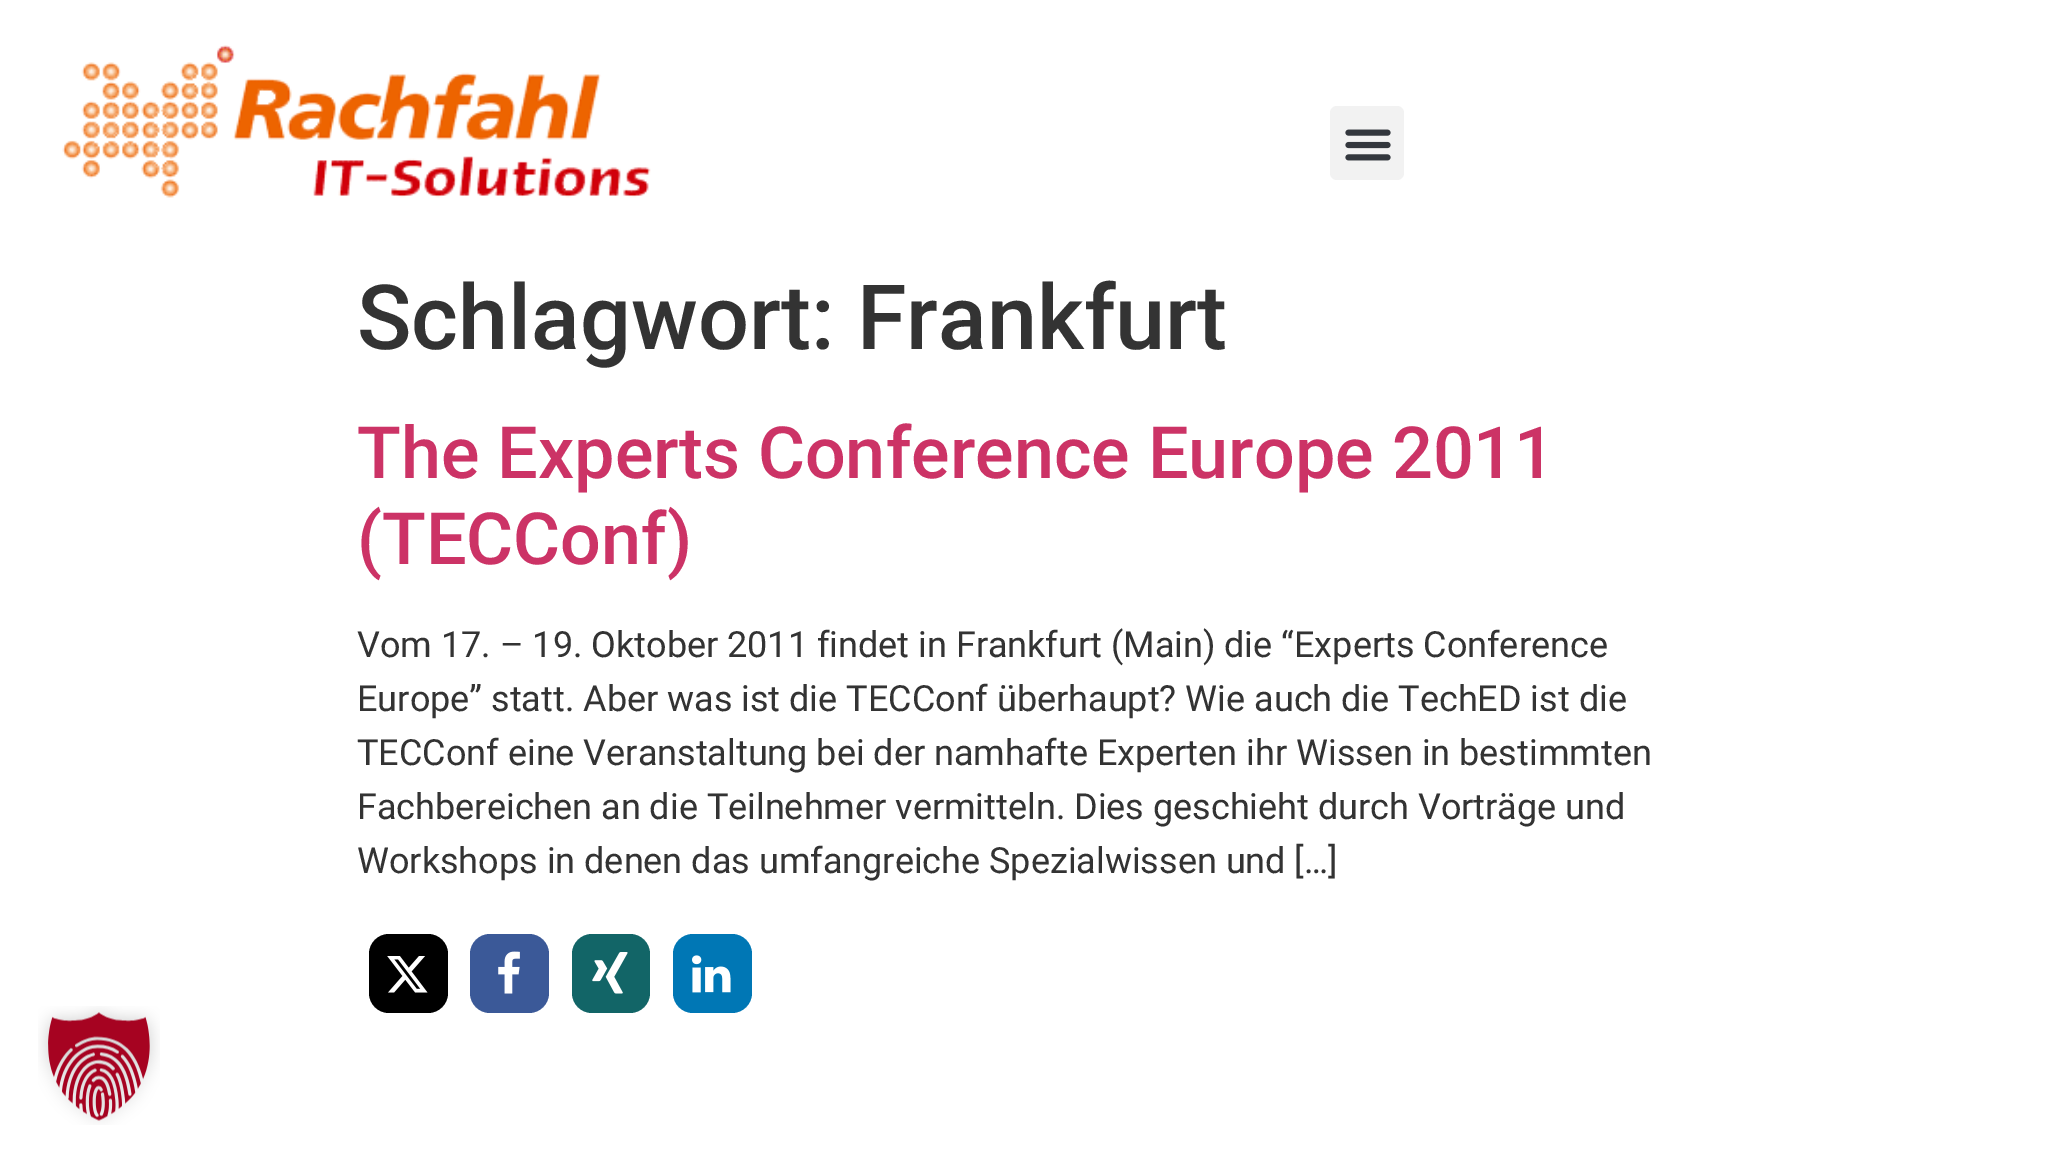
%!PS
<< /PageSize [2062 1165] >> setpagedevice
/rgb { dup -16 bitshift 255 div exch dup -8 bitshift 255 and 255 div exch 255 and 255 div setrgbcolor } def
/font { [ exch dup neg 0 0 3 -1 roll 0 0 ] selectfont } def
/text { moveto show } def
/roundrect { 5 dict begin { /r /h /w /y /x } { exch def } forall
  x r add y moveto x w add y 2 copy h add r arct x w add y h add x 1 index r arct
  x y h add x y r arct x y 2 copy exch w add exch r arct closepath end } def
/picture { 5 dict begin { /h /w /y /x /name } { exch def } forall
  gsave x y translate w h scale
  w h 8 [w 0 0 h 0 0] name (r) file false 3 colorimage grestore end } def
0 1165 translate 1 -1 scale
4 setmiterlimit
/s1 { /Roboto-Medium 90 font 16#333333 rgb } def
/s2 { /Roboto-Medium 72 font 16#CC3366 rgb } def
/s3 { /Roboto-Regular 36 font 16#333333 rgb } def
16#FFFFFF rgb
0 0 2062 1165 rectfill
(pic1.raw) 62 45 589 153 picture
16#F2F2F2 rgb
1330 106 74 74 7 roundrect fill
(pic2.raw) 1345 129 46 32 picture
s1
(Schlagwort: Frankfurt) 357 349 text
s2
(The Experts Conference Europe 2011) 357 478 text
(\(TECConf\)) 357 564 text
s3
(Vom 17. – 19. Oktober 2011 findet in Frankfurt \(Main\) die “Experts Conference) 357 657 text
(Europe” statt. Aber was ist die TECConf überhaupt? Wie auch die TechED ist die) 357 711 text
(TECConf eine Veranstaltung bei der namhafte Experten ihr Wissen in bestimmten) 357 765 text
(Fachbereichen an die Teilnehmer vermitteln. Dies geschieht durch Vorträge und) 357 819 text
(Workshops in denen das umfangreiche Spezialwissen und […]) 357 873 text
16#000000 rgb
369 934 79 79 20 roundrect fill
(pic3.raw) 387 956 41 37 picture
16#3B5998 rgb
470 934 79 79 20 roundrect fill
(pic4.raw) 498 951 22 43 picture
16#126567 rgb
572 934 78 79 20 roundrect fill
(pic5.raw) 592 952 36 42 picture
16#0077B5 rgb
673 934 79 79 20 roundrect fill
(pic6.raw) 692 955 39 38 picture
(pic7.raw) 38 1006 122 119 picture
showpage
